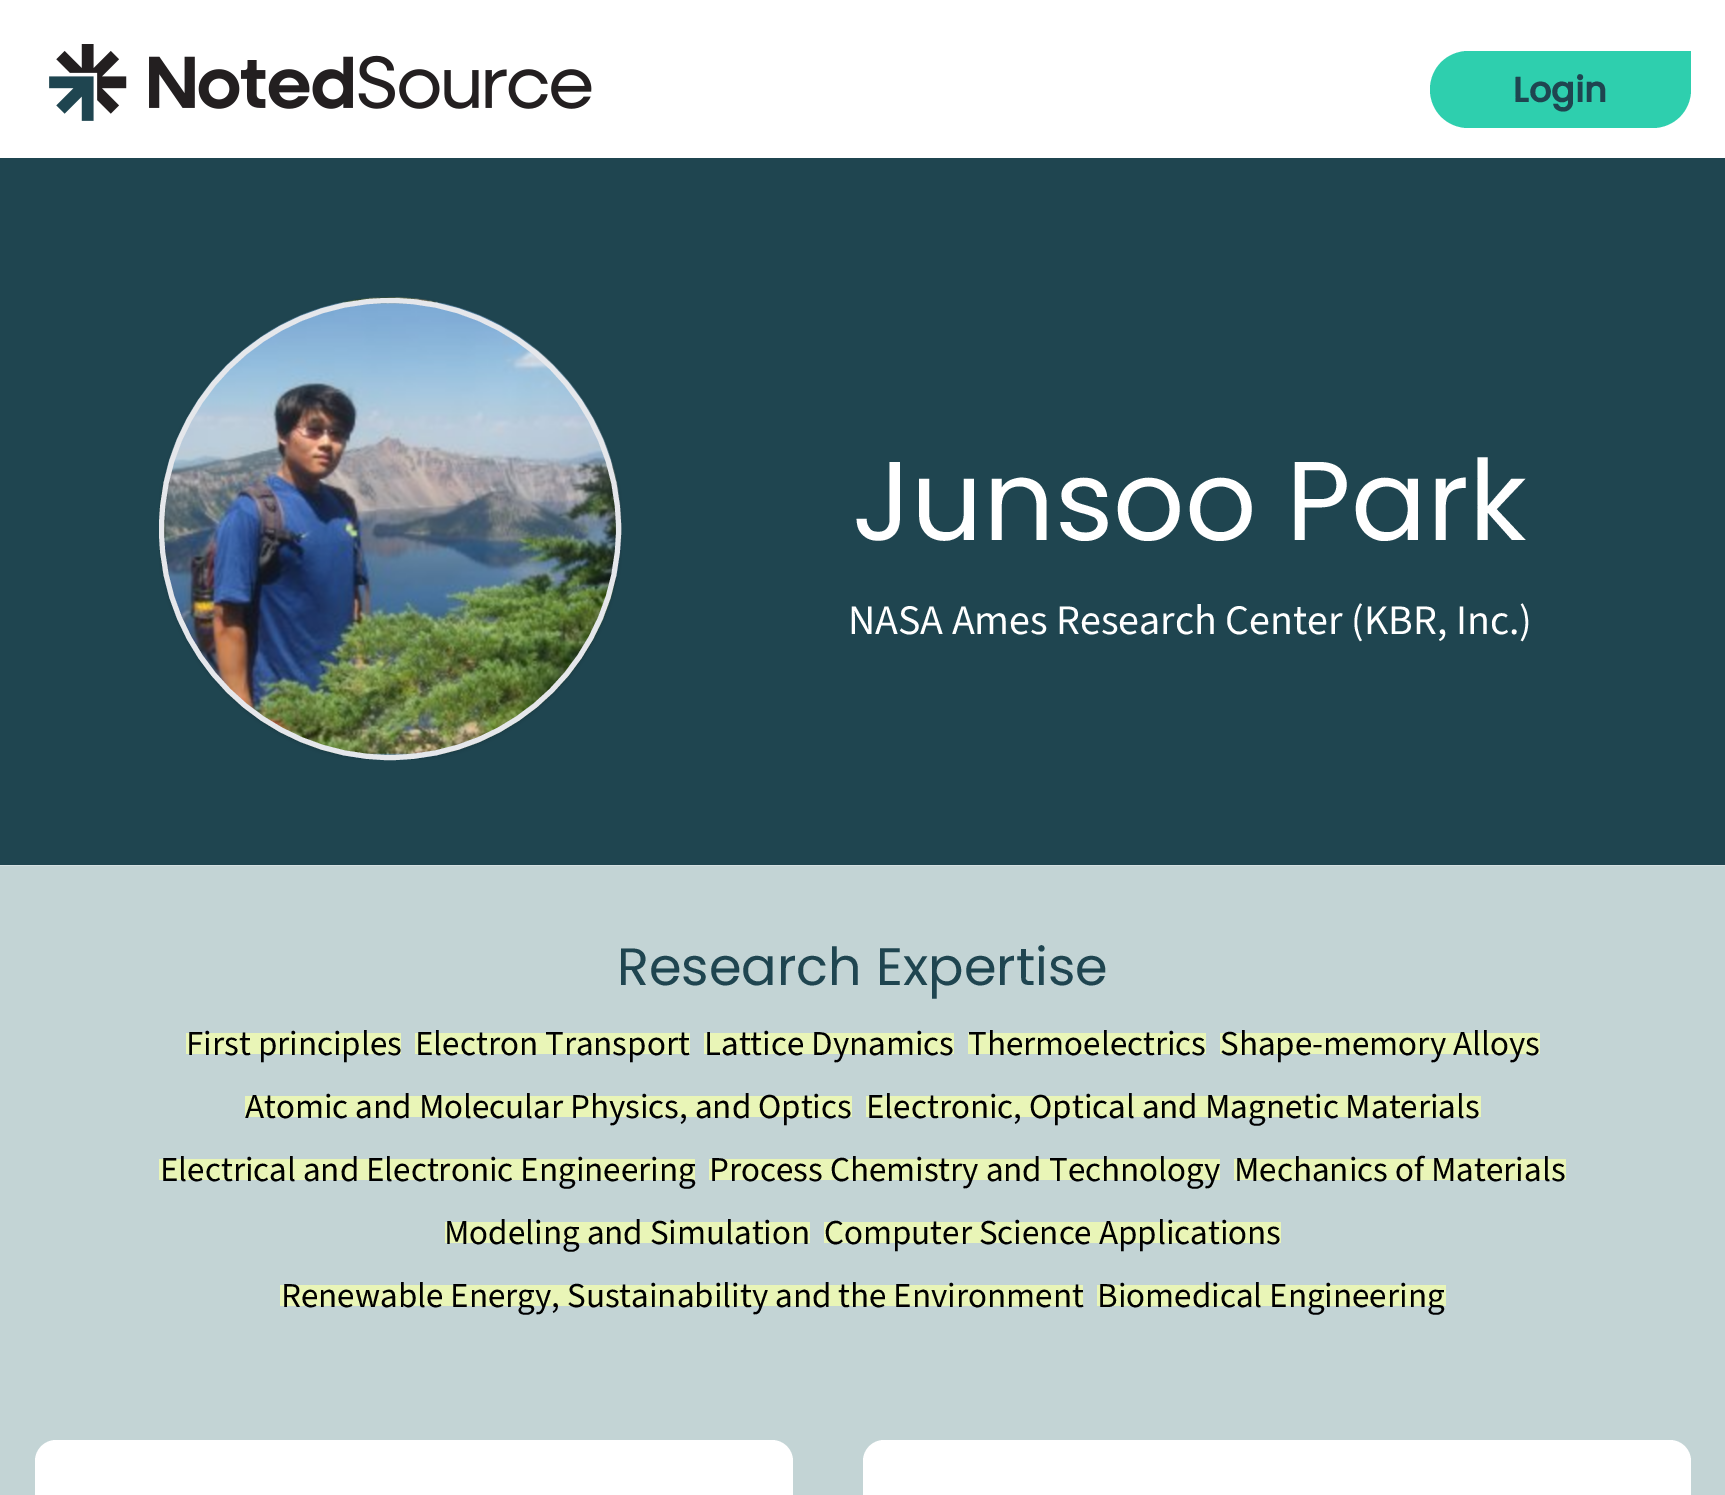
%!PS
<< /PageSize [1725 1495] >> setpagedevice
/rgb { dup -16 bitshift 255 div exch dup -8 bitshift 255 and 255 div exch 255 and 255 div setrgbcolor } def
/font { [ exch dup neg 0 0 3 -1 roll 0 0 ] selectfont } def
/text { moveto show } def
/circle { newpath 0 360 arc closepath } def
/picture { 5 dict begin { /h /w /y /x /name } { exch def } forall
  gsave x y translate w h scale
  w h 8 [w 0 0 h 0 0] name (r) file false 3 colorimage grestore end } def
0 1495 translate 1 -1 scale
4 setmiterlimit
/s1 { /Poppins-Bold 35 font 16#1F4550 rgb } def
/s2 { /Poppins-Regular 112 font 16#FFFFFF rgb } def
/s3 { /SourceSans3-Regular 42 font 16#FFFFFF rgb } def
/s4 { /Poppins-Regular 52.5 font 16#1F4550 rgb } def
/s5 { /SourceSans3-Regular 35 font 16#000000 rgb } def
16#C3D4D5 rgb
0 0 1725 1495 rectfill
16#FFFFFF rgb
0 0 1725 158 rectfill
(pic1.raw) 49 44 543 77 picture
16#2ECFAE rgb
1468.5 51 moveto 1691 51 lineto 1691 89.5 lineto 1691 111 1674 128 1652.5 128 curveto 1468.5 128 lineto 1447 128 1430 111 1430 89.5 curveto 1430 68 1447 51 1468.5 51 curveto closepath fill
s1
(Login) 1513 102 text
0 158 1725 707 rectfill
16#D5E0E2 rgb
0 865 1725 1 rectfill
(pic2.raw) 159 297 463 463 picture
16#E5E7EB rgb
5 setlinewidth
390 529 228.5 circle stroke
s2
(Junsoo Park) 852 540 text
s3
(NASA Ames Research Center \(KBR, Inc.\)) 848 634 text
s4
(Research Expertise) 617 985 text
16#E9F5B7 rgb
186 1033 215 21 rectfill
s5
(First principles) 186 1055 text
16#E9F5B7 rgb
415 1033 275 21 rectfill
s5
(Electron Transport) 415 1055 text
16#E9F5B7 rgb
704 1033 250 21 rectfill
s5
(Lattice Dynamics) 704 1055 text
16#E9F5B7 rgb
968 1033 238 21 rectfill
s5
(Thermoelectrics) 968 1055 text
16#E9F5B7 rgb
1220 1033 320 21 rectfill
s5
(Shape-memory Alloys) 1220 1055 text
16#E9F5B7 rgb
245 1096 607 21 rectfill
s5
(Atomic and Molecular Physics, and Optics) 245 1118 text
16#E9F5B7 rgb
866 1096 615 21 rectfill
s5
(Electronic, Optical and Magnetic Materials) 866 1118 text
16#E9F5B7 rgb
159 1159 536 21 rectfill
s5
(Electrical and Electronic Engineering) 160 1181 text
16#E9F5B7 rgb
709 1159 511 21 rectfill
s5
(Process Chemistry and Technology) 709 1181 text
16#E9F5B7 rgb
1234 1159 332 21 rectfill
s5
(Mechanics of Materials) 1234 1181 text
16#E9F5B7 rgb
445 1222 365 21 rectfill
s5
(Modeling and Simulation) 444 1244 text
16#E9F5B7 rgb
824 1222 457 21 rectfill
s5
(Computer Science Applications) 824 1244 text
16#E9F5B7 rgb
280 1285 803 21 rectfill
s5
(Renewable Energy, Sustainability and the Environment) 281 1307 text
16#E9F5B7 rgb
1097 1285 349 21 rectfill
s5
(Biomedical Engineering) 1097 1307 text
16#FFFFFF rgb
56 1440 moveto 772 1440 lineto 783.5 1440 793 1449.5 793 1461 curveto 793 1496 lineto 35 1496 lineto 35 1461 lineto 35 1449.5 44.5 1440 56 1440 curveto closepath fill
884 1440 moveto 1670 1440 lineto 1681.5 1440 1691 1449.5 1691 1461 curveto 1691 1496 lineto 863 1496 lineto 863 1461 lineto 863 1449.5 872.5 1440 884 1440 curveto closepath fill
showpage
